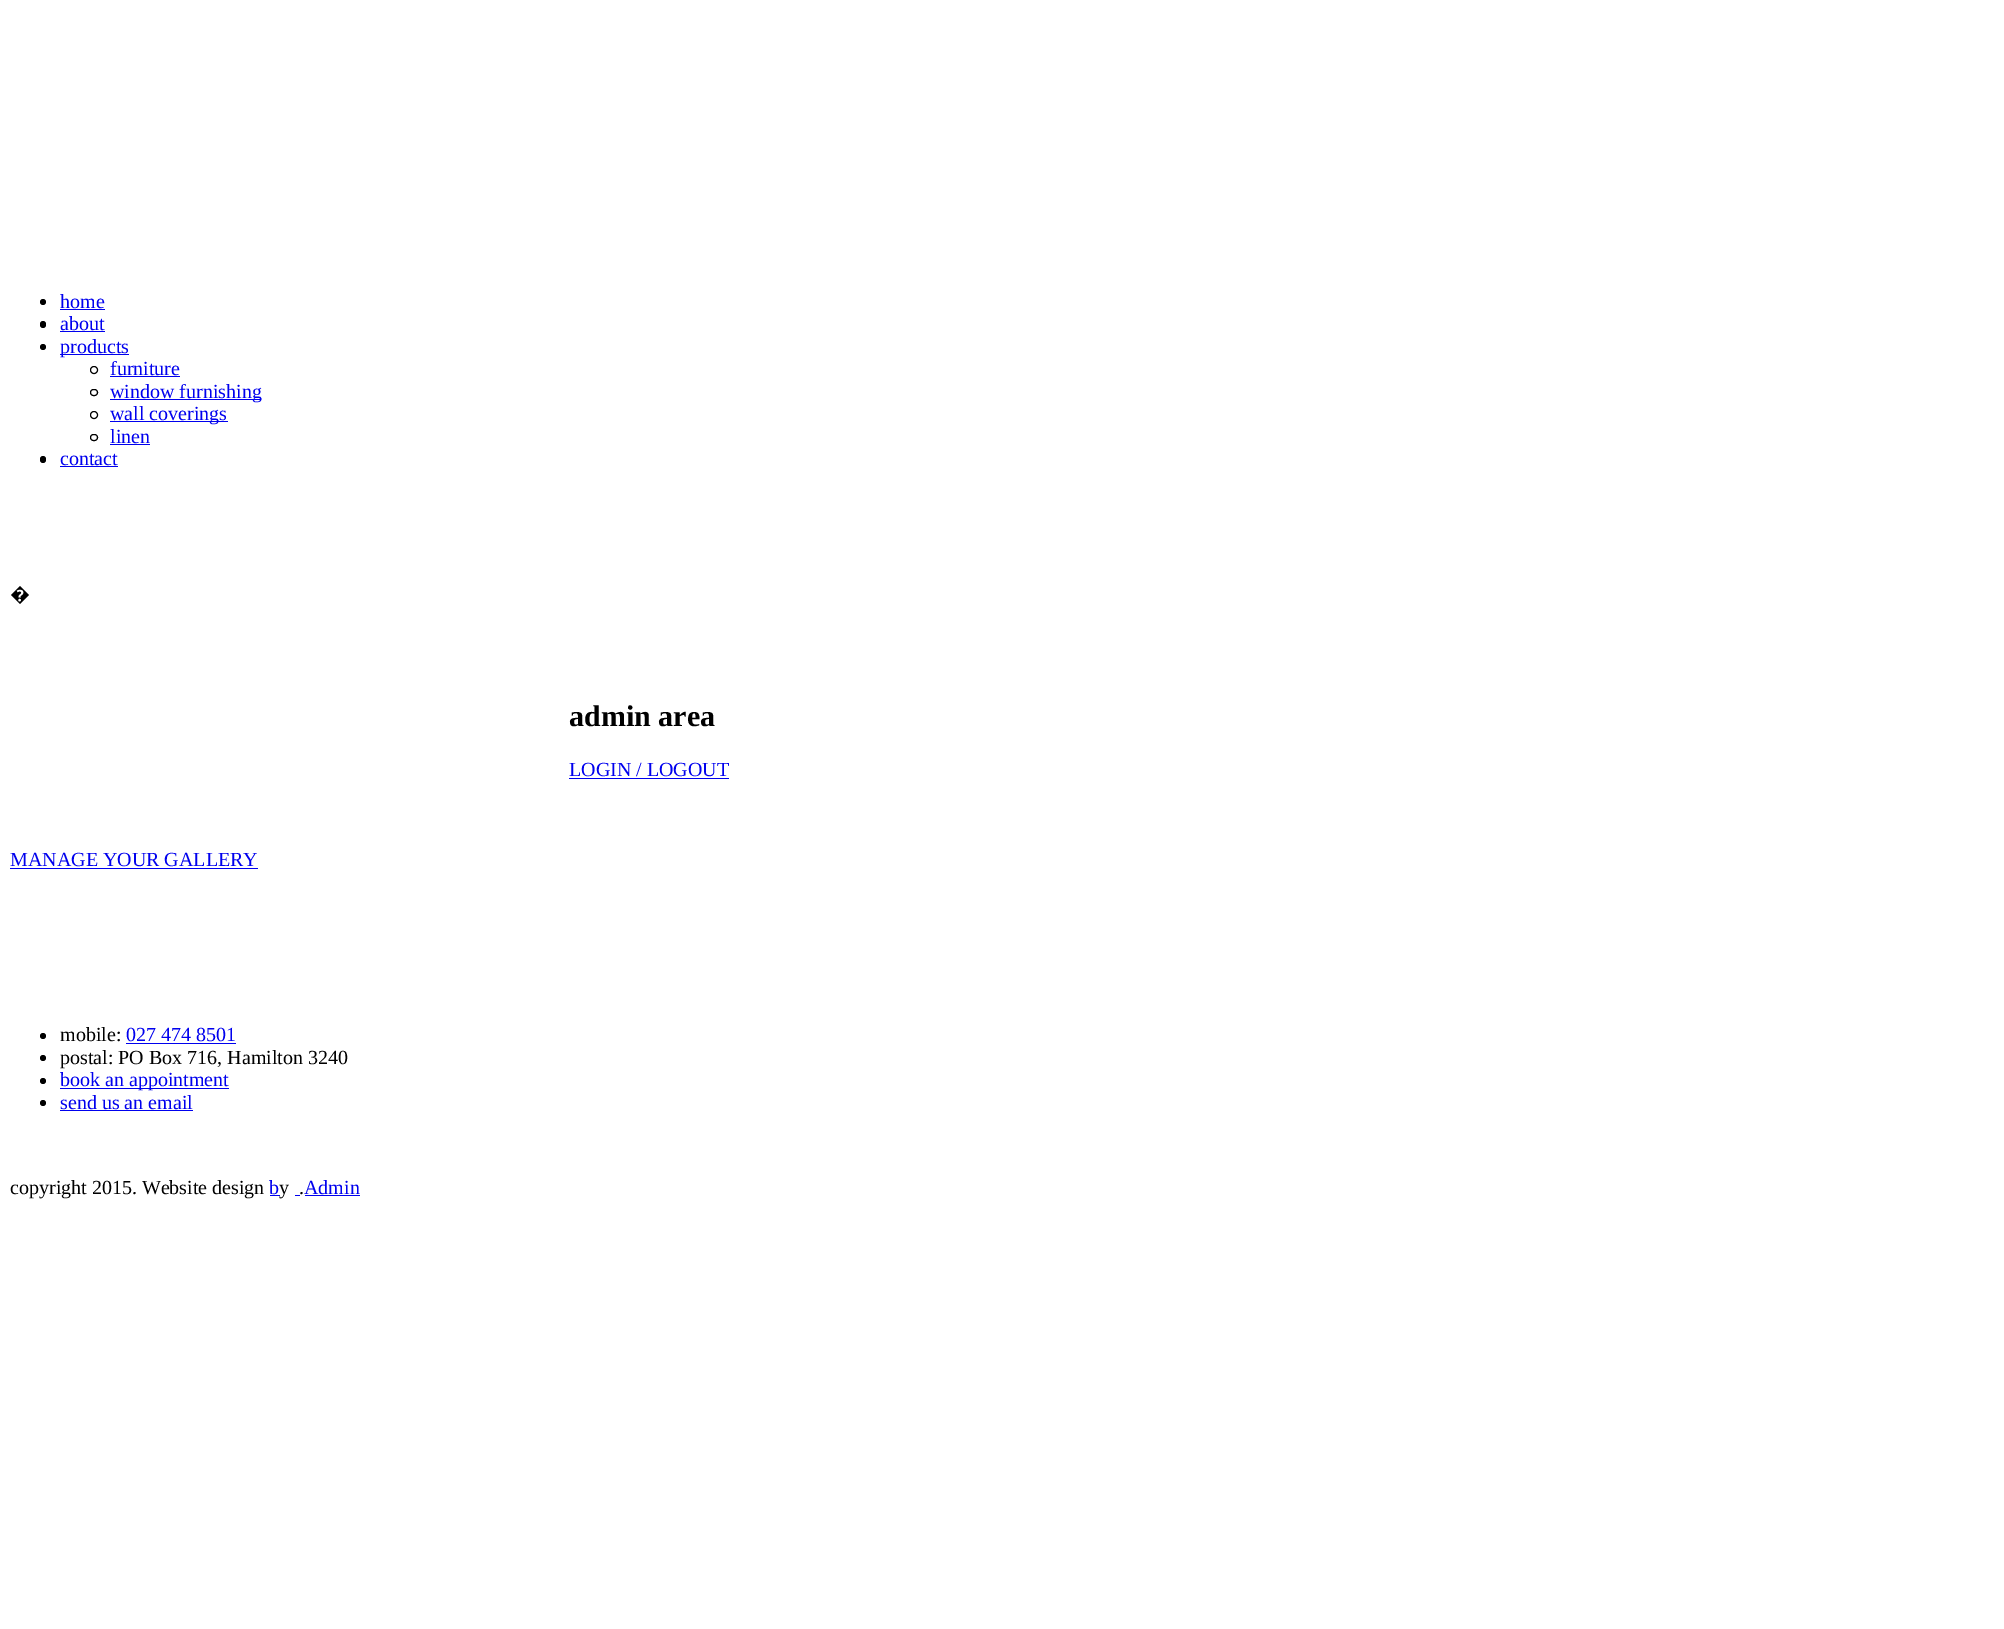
%!PS
<< /PageSize [2004 1629] >> setpagedevice
/rgb { dup -16 bitshift 255 div exch dup -8 bitshift 255 and 255 div exch 255 and 255 div setrgbcolor } def
/font { [ exch dup neg 0 0 3 -1 roll 0 0 ] selectfont } def
/text { moveto show } def
/circle { newpath 0 360 arc closepath } def
/roundrect { 5 dict begin { /r /h /w /y /x } { exch def } forall
  x r add y moveto x w add y 2 copy h add r arct x w add y h add x 1 index r arct
  x y h add x y r arct x y 2 copy exch w add exch r arct closepath end } def
0 1629 translate 1 -1 scale
4 setmiterlimit
/s1 { /LiberationSerif-Regular 20 font 16#0000EE rgb } def
/s2 { /NotoSans-Regular 20 font 16#000000 rgb } def
/s3 { /LiberationSerif-Bold 30 font 16#000000 rgb } def
/s4 { /LiberationSerif-Regular 20 font 16#000000 rgb } def
16#FFFFFF rgb
0 0 2004 1629 rectfill
16#000000 rgb
43 302 3 circle fill
s1
(home) 60 308 text
60 309 45 1 rectfill
16#000000 rgb
40 321 6 7 3 roundrect fill
s1
(about) 60 330 text
60 331 45 1 rectfill
16#000000 rgb
43 347 3 circle fill
16#0000EE rgb
60 354 69 1 rectfill
(products) 60 353 text
16#000000 rgb
94 370 3.5 circle stroke
s1
(furniture) 110 375 text
110 376 70 1 rectfill
16#000000 rgb
90.5 389.5 7 6 3 roundrect stroke
16#0000EE rgb
110 399 151 1 rectfill
(window furnishing) 110 398 text
16#000000 rgb
94 415 3.5 circle stroke
16#0000EE rgb
110 421 118 1 rectfill
(wall coverings) 110 420 text
16#000000 rgb
90.5 434.5 7 6 3 roundrect stroke
s1
(linen) 110 443 text
110 444 40 1 rectfill
16#000000 rgb
40 456 6 7 3 roundrect fill
s1
(contact) 60 465 text
60 466 58 1 rectfill
s2
(�) 10 601 text
s3
(admin area) 569 726 text
s1
(LOGIN / LOGOUT) 569 776 text
569 778 160 1 rectfill
(MANAGE YOUR GALLERY) 10 866 text
10 868 248 1 rectfill
16#000000 rgb
43 1036 3 circle fill
(mobile:) 60 1041 text
s1
(027 474 8501) 126 1041 text
126 1043 110 1 rectfill
16#000000 rgb
43 1058 3 circle fill
(postal: PO Box 716, Hamilton 3240) 60 1064 text
43 1081 3 circle fill
16#0000EE rgb
60 1088 169 1 rectfill
(book an appointment) 60 1086 text
16#000000 rgb
43 1103 3 circle fill
s1
(send us an email) 60 1109 text
60 1110 133 1 rectfill
s4
(copyright 2015. Website design) 10 1194 text
s1
(b) 269 1194 text
270 1195 10 1 rectfill
s4
(y) 279 1194 text
(.) 299 1194 text
s1
(Admin) 304 1194 text
305 1195 55 1 rectfill
295 1195 5 1 rectfill
showpage
